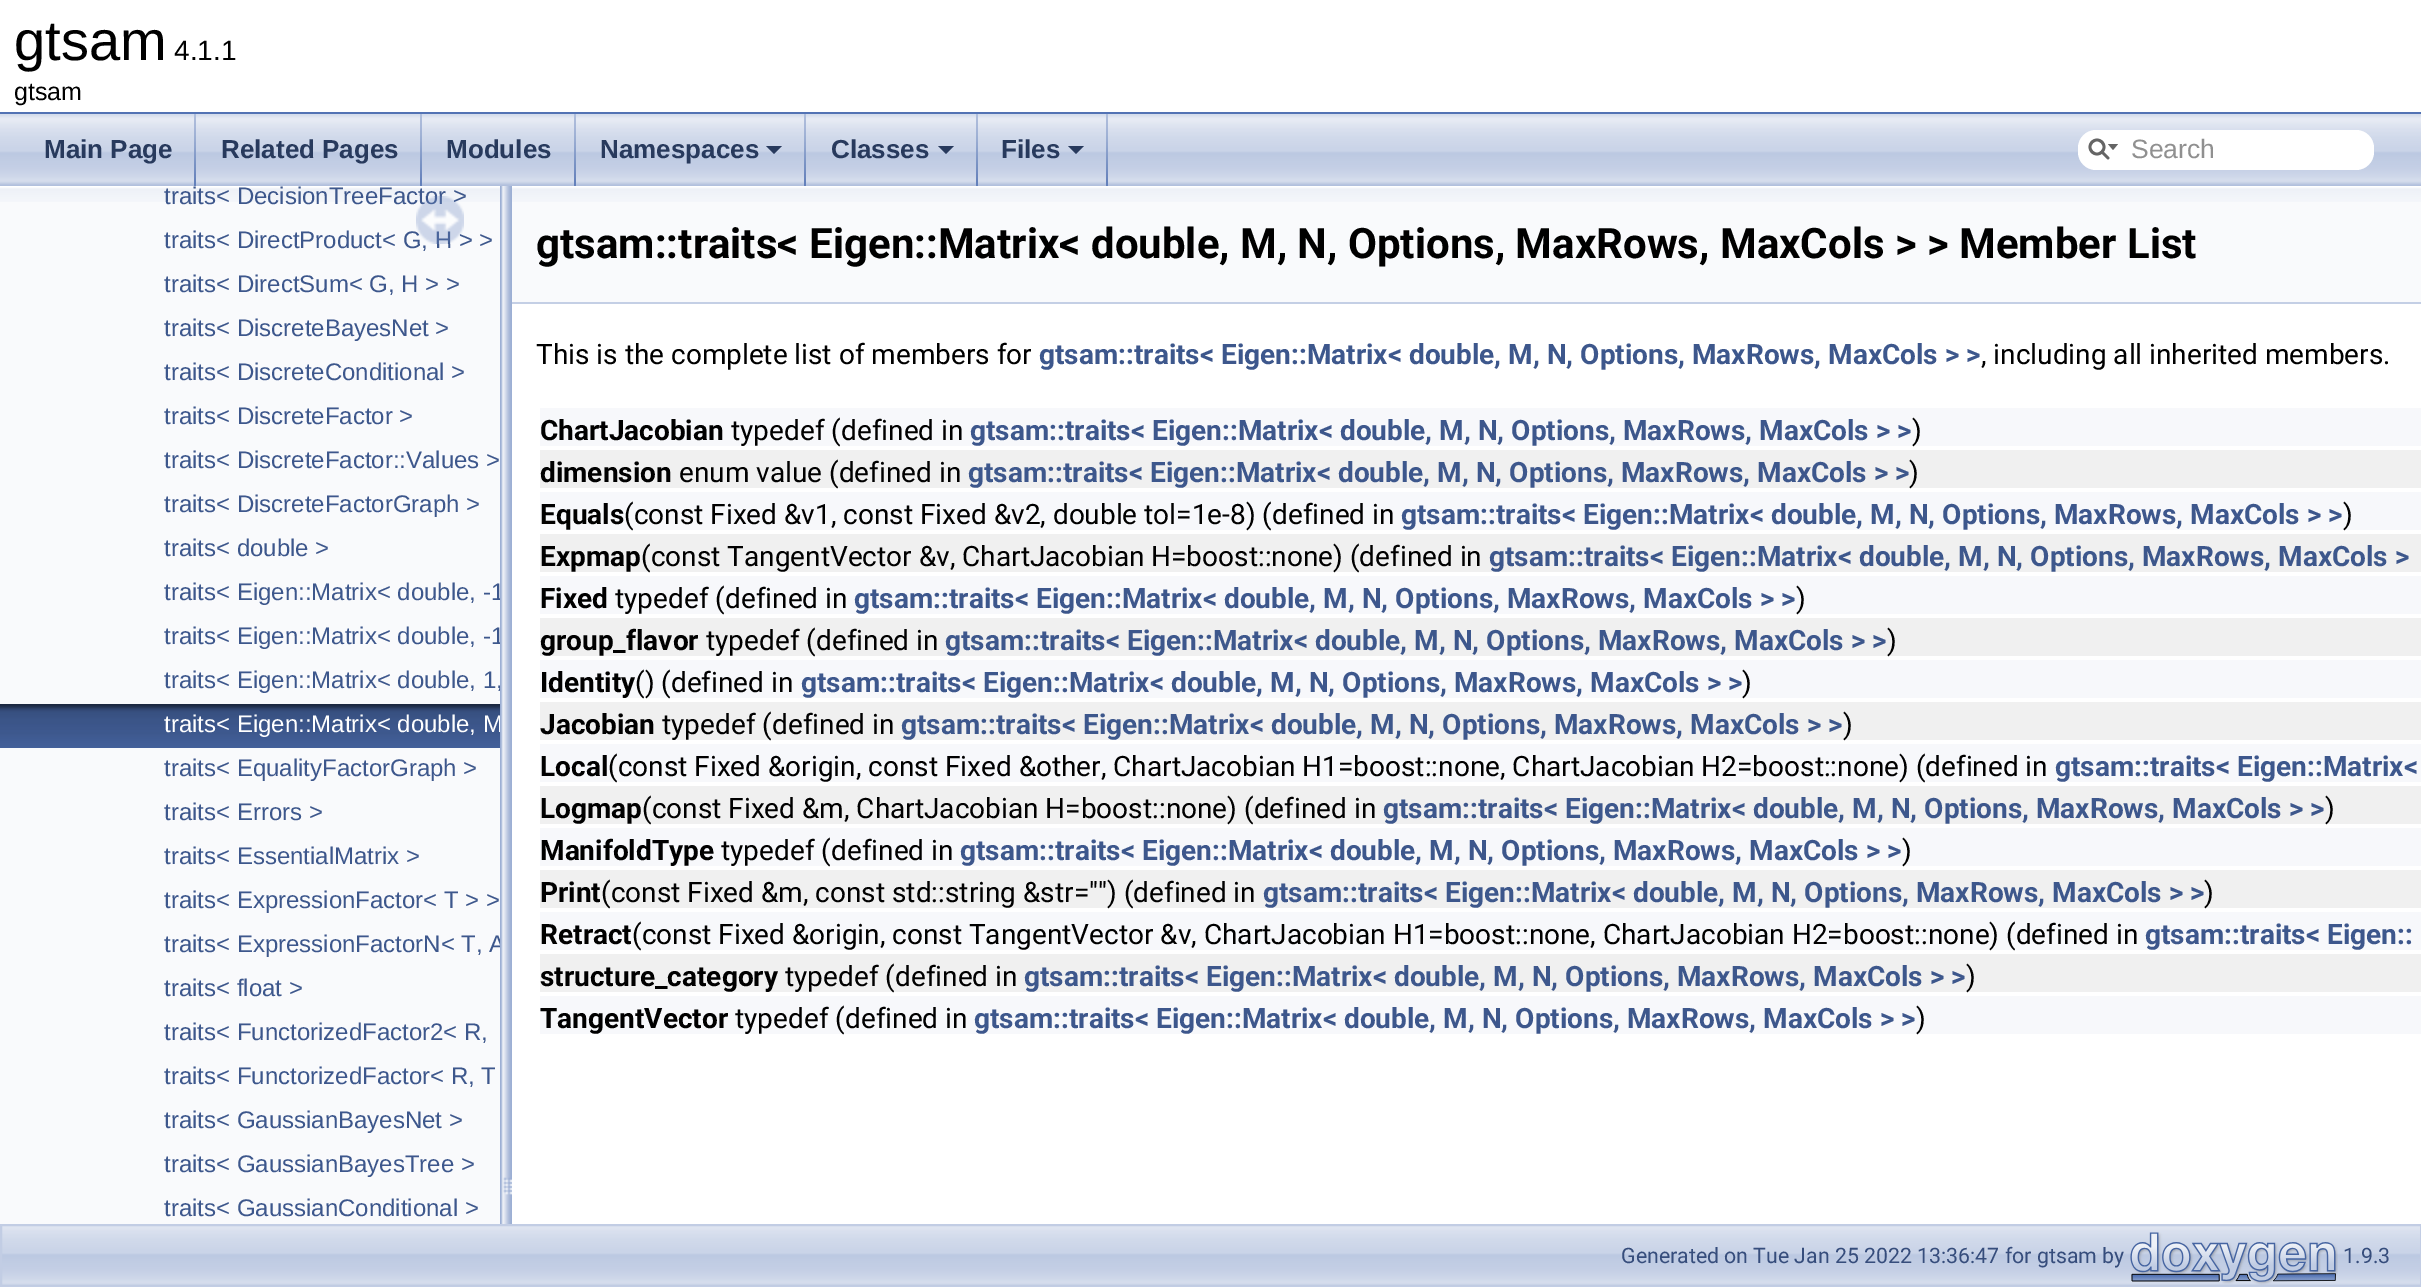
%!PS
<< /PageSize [2421 1287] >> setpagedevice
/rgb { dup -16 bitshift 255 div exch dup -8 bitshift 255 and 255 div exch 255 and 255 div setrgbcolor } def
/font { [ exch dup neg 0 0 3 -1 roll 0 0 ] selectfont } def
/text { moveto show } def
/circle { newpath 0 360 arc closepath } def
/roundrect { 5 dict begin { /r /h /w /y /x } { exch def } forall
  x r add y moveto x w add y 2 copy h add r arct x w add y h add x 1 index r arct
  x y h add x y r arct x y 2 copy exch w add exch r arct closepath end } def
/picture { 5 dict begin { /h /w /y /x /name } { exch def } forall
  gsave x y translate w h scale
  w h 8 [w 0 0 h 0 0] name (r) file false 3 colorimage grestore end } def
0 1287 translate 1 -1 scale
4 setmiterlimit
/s1 { /LiberationSans-Regular 56 font 16#000000 rgb } def
/s2 { /LiberationSans-Regular 28 font 16#000000 rgb } def
/s3 { /LiberationSans-Regular 25 font 16#000000 rgb } def
/s4 { /LiberationSans-Bold 26 font 16#283A5D rgb } def
/s5 { /LiberationSans-Regular 26.5 font 16#909090 rgb } def
/s6 { /LiberationSans-Regular 24 font 16#3D578C rgb } def
/s7 { /LiberationSans-Regular 24 font 16#FFFFFF rgb } def
/s8 { /Roboto-Bold 42 font 16#000000 rgb } def
/s9 { /Roboto-Regular 28 font 16#000000 rgb } def
/s10 { /Roboto-Bold 28 font 16#3D578C rgb } def
/s11 { /Roboto-Bold 28 font 16#000000 rgb } def
/s12 { /Roboto-Regular 21.3 font 16#364D7C rgb } def
16#FFFFFF rgb
0 0 2421 1287 rectfill
16#5373B4 rgb
0 112 2421 2 rectfill
s1
(gtsam) 14 60 text
s2
(4.1.1) 174 60 text
s3
(gtsam) 14 100 text
(pic1.raw) 0 114 2421 72 picture
(pic2.raw) 194 114 2 72 picture
s4
(Main Page) 44 158 text
(pic2.raw) 420 114 2 72 picture
(Related Pages) 221 158 text
(pic2.raw) 574 114 2 72 picture
(Modules) 446 158 text
(pic2.raw) 804 114 2 72 picture
(Namespaces) 600 158 text
766 146 moveto 782 146 lineto 774 154 lineto closepath fill
(pic2.raw) 976 114 2 72 picture
(Classes) 831 158 text
938 146 moveto 954 146 lineto 946 154 lineto closepath fill
(pic2.raw) 1106 114 2 72 picture
(Files) 1001 158 text
1068 146 moveto 1084 146 lineto 1076 154 lineto closepath fill
16#FFFFFF rgb
2078 130 296 40 18 roundrect fill
16#656565 rgb
2.8 setlinewidth
2097 147 7 circle stroke
2108 144 moveto 2113 150 lineto 2118 144 lineto closepath fill
1 setlinecap
2102 152 moveto 2108 158 lineto stroke
s5
(Search) 2131 158 text
16#F9FAFC rgb
0 202 500 1022 rectfill
(pic3.raw) 0 186 500 16 picture
s6
(traits< DecisionTreeFactor >) 164 204 text
(traits< DirectProduct< G, H > >) 164 248 text
(traits< DirectSum< G, H > >) 164 292 text
(traits< DiscreteBayesNet >) 164 336 text
(traits< DiscreteConditional >) 164 380 text
(traits< DiscreteFactor >) 164 424 text
(traits< DiscreteFactor::Values >) 164 468 text
(traits< DiscreteFactorGraph >) 164 512 text
(traits< double >) 164 556 text
(traits< Eigen::Matrix< double, -1) 164 600 text
(traits< Eigen::Matrix< double, -1) 164 644 text
(traits< Eigen::Matrix< double, 1,) 164 688 text
(pic4.raw) 0 704 500 44 picture
s7
(traits< Eigen::Matrix< double, M) 164 732 text
s6
(traits< EqualityFactorGraph >) 164 776 text
(traits< Errors >) 164 820 text
(traits< EssentialMatrix >) 164 864 text
(traits< ExpressionFactor< T > >) 164 908 text
(traits< ExpressionFactorN< T, A) 164 952 text
(traits< float >) 164 996 text
(traits< FunctorizedFactor2< R,) 164 1040 text
(traits< FunctorizedFactor< R, T) 164 1084 text
(traits< GaussianBayesNet >) 164 1128 text
(traits< GaussianBayesTree >) 164 1172 text
(traits< GaussianConditional >) 164 1216 text
(pic5.raw) 416 196 48 48 picture
(pic6.raw) 500 186 12 1038 picture
16#F9FAFC rgb
512 202 1909 100 rectfill
(pic7.raw) 512 186 1909 16 picture
16#C4CFE5 rgb
512 302 1909 2 rectfill
s8
(gtsam::traits< Eigen::Matrix< double, M, N, Options, MaxRows, MaxCols > > Member List) 536 258 text
s9
(This is the complete list of members for) 536 364 text
s10
(gtsam::traits< Eigen::Matrix< double, M, N, Options, MaxRows, MaxCols > >) 1039 364 text
s9
(, including all inherited members.) 1981 364 text
16#F7F8FB rgb
540 408 1881 38 rectfill
s11
(ChartJacobian) 540 440 text
s9
(typedef \(defined in) 731 440 text
s10
(gtsam::traits< Eigen::Matrix< double, M, N, Options, MaxRows, MaxCols > >) 970 440 text
s9
(\)) 1912 440 text
16#F0F0F0 rgb
540 450 1881 38 rectfill
s11
(dimension) 540 482 text
s9
(enum value \(defined in) 679 482 text
s10
(gtsam::traits< Eigen::Matrix< double, M, N, Options, MaxRows, MaxCols > >) 968 482 text
s9
(\)) 1909 482 text
16#F7F8FB rgb
540 492 1881 38 rectfill
s11
(Equals) 540 524 text
s9
(\(const Fixed &v1, const Fixed &v2, double tol=1e-8\) \(defined in) 624 524 text
s10
(gtsam::traits< Eigen::Matrix< double, M, N, Options, MaxRows, MaxCols > >) 1401 524 text
s9
(\)) 2343 524 text
16#F0F0F0 rgb
540 534 1881 38 rectfill
s11
(Expmap) 540 566 text
s9
(\(const TangentVector &v, ChartJacobian H=boost::none\) \(defined in) 641 566 text
s10
(gtsam::traits< Eigen::Matrix< double, M, N, Options, MaxRows, MaxCols >) 1489 566 text
16#F7F8FB rgb
540 576 1881 38 rectfill
s11
(Fixed) 540 608 text
s9
(typedef \(defined in) 615 608 text
s10
(gtsam::traits< Eigen::Matrix< double, M, N, Options, MaxRows, MaxCols > >) 854 608 text
s9
(\)) 1796 608 text
16#F0F0F0 rgb
540 618 1881 38 rectfill
s11
(group_flavor) 540 650 text
s9
(typedef \(defined in) 706 650 text
s10
(gtsam::traits< Eigen::Matrix< double, M, N, Options, MaxRows, MaxCols > >) 945 650 text
s9
(\)) 1887 650 text
16#F7F8FB rgb
540 660 1881 38 rectfill
s11
(Identity) 540 692 text
s9
(\(\) \(defined in) 635 692 text
s10
(gtsam::traits< Eigen::Matrix< double, M, N, Options, MaxRows, MaxCols > >) 801 692 text
s9
(\)) 1742 692 text
16#F0F0F0 rgb
540 702 1881 38 rectfill
s11
(Jacobian) 540 734 text
s9
(typedef \(defined in) 662 734 text
s10
(gtsam::traits< Eigen::Matrix< double, M, N, Options, MaxRows, MaxCols > >) 901 734 text
s9
(\)) 1843 734 text
16#F7F8FB rgb
540 744 1881 38 rectfill
s11
(Local) 540 776 text
s9
(\(const Fixed &origin, const Fixed &other, ChartJacobian H1=boost::none, ChartJacobian H2=boost::none\) \(defined in) 608 776 text
s10
(gtsam::traits< Eigen::Matrix<) 2055 776 text
16#F0F0F0 rgb
540 786 1881 38 rectfill
s11
(Logmap) 540 818 text
s9
(\(const Fixed &m, ChartJacobian H=boost::none\) \(defined in) 642 818 text
s10
(gtsam::traits< Eigen::Matrix< double, M, N, Options, MaxRows, MaxCols > >) 1383 818 text
s9
(\)) 2325 818 text
16#F7F8FB rgb
540 828 1881 38 rectfill
s11
(ManifoldType) 540 860 text
s9
(typedef \(defined in) 721 860 text
s10
(gtsam::traits< Eigen::Matrix< double, M, N, Options, MaxRows, MaxCols > >) 960 860 text
s9
(\)) 1902 860 text
16#F0F0F0 rgb
540 870 1881 38 rectfill
s11
(Print) 540 902 text
s9
(\(const Fixed &m, const std::string &str=""\) \(defined in) 601 902 text
s10
(gtsam::traits< Eigen::Matrix< double, M, N, Options, MaxRows, MaxCols > >) 1263 902 text
s9
(\)) 2204 902 text
16#F7F8FB rgb
540 912 1881 38 rectfill
s11
(Retract) 540 944 text
s9
(\(const Fixed &origin, const TangentVector &v, ChartJacobian H1=boost::none, ChartJacobian H2=boost::none\) \(defined in) 632 944 text
s10
(gtsam::traits< Eigen::) 2145 944 text
16#F0F0F0 rgb
540 954 1881 38 rectfill
s11
(structure_category) 540 986 text
s9
(typedef \(defined in) 785 986 text
s10
(gtsam::traits< Eigen::Matrix< double, M, N, Options, MaxRows, MaxCols > >) 1024 986 text
s9
(\)) 1966 986 text
16#F7F8FB rgb
540 996 1881 38 rectfill
s11
(TangentVector) 540 1028 text
s9
(typedef \(defined in) 735 1028 text
s10
(gtsam::traits< Eigen::Matrix< double, M, N, Options, MaxRows, MaxCols > >) 974 1028 text
s9
(\)) 1916 1028 text
(pic8.raw) 2 1226 2418 60 picture
16#C2CDE4 rgb
2 setlinewidth
0 setlinecap
1 1225 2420 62 rectstroke
s12
(Generated on Tue Jan 25 2022 13:36:47 for gtsam by) 1621 1263 text
(pic9.raw) 2130 1232 208 53 picture
(1.9.3) 2343 1263 text
showpage
